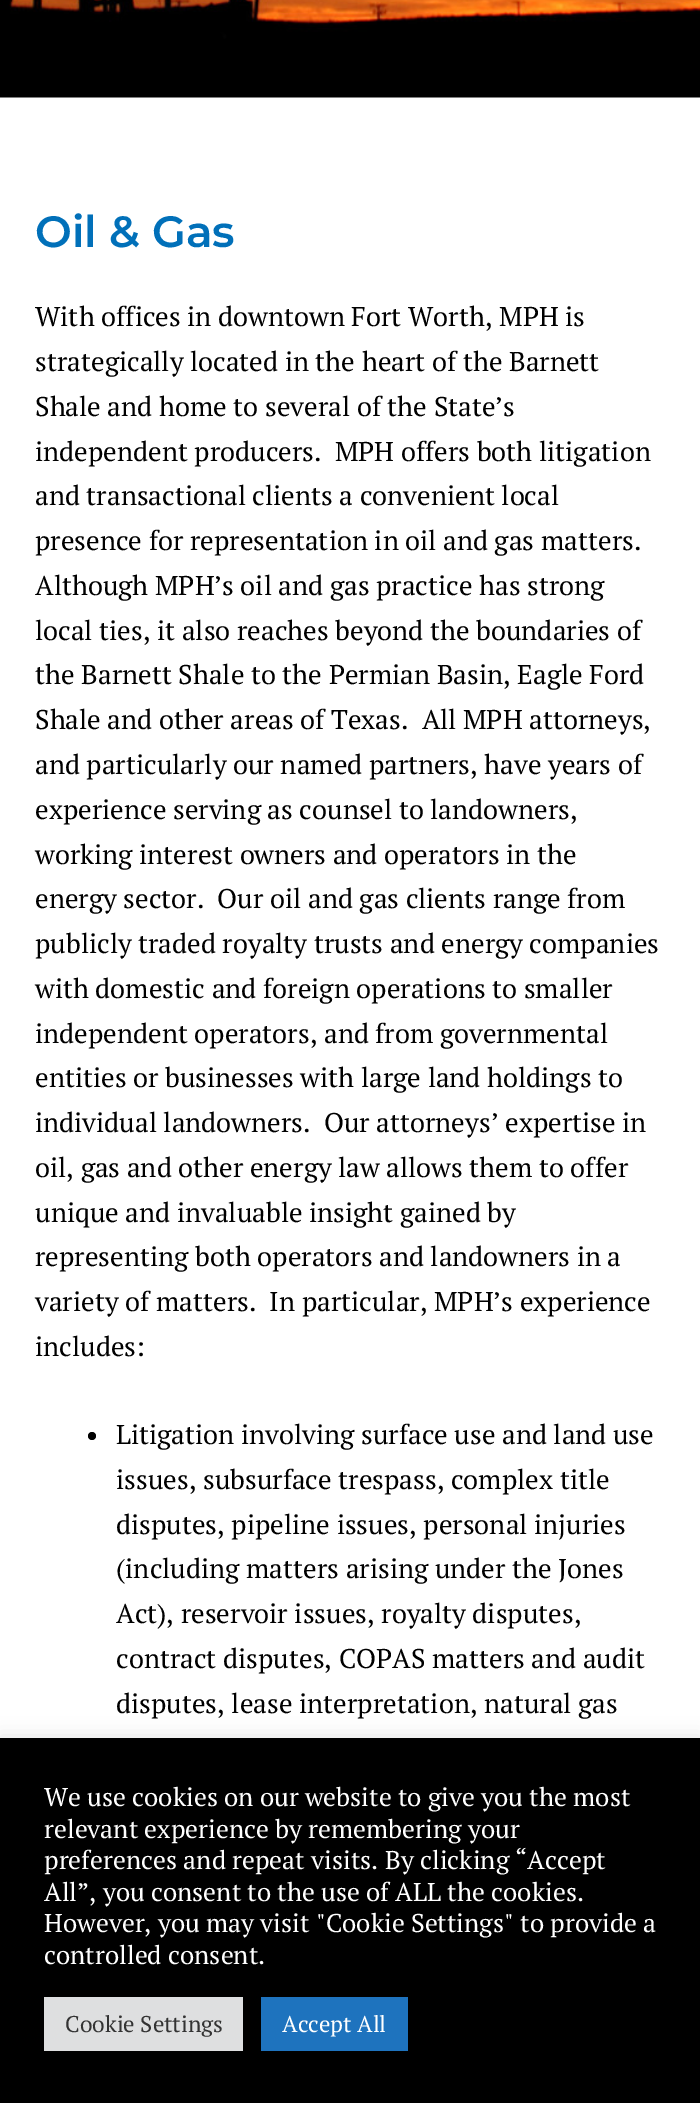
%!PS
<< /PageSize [700 2103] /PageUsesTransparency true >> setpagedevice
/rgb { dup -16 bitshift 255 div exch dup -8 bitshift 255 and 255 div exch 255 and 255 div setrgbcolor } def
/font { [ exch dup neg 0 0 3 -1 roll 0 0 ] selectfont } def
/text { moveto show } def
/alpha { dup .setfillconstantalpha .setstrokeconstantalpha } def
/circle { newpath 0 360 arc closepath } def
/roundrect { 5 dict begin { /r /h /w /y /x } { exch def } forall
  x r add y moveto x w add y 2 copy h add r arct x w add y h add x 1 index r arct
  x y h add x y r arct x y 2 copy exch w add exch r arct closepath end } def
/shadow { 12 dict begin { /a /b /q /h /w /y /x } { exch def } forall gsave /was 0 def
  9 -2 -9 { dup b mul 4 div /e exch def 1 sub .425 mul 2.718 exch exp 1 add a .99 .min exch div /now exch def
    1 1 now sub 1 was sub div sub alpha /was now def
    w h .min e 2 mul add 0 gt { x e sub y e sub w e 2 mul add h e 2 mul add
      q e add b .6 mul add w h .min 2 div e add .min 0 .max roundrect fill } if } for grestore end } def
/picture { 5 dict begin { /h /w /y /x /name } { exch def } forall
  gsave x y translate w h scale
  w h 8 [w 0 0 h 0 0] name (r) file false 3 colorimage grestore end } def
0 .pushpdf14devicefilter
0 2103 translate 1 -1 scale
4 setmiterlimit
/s1 { /Montserrat-Thin 43.75 font 16#0170B9 rgb } def
/s2 { /PTSerif-Regular 27.1 font 16#000000 rgb } def
/s3 { /PTSerif-Regular 25.7 font 16#FFFFFF rgb } def
/s4 { /PTSerif-Regular 22.75 font 16#333333 rgb } def
/s5 { /PTSerif-Regular 22.75 font 16#FFFFFF rgb } def
16#FFFFFF rgb
0 0 700 2103 rectfill
(pic1.raw) 0 0 700 98 picture
s1
(Oil & Gas) 35 247 text
s2
(With offices in downtown Fort Worth, MPH is) 35 326 text
(strategically located in the heart of the Barnett) 35 371 text
(Shale and home to several of the State’s) 35 416 text
(independent producers.  MPH offers both litigation) 35 461 text
(and transactional clients a convenient local) 35 505 text
(presence for representation in oil and gas matters.) 35 550 text
(Although MPH’s oil and gas practice has strong) 35 595 text
(local ties, it also reaches beyond the boundaries of) 35 640 text
(the Barnett Shale to the Permian Basin, Eagle Ford) 35 684 text
(Shale and other areas of Texas.  All MPH attorneys,) 35 729 text
(and particularly our named partners, have years of) 35 774 text
(experience serving as counsel to landowners,) 35 819 text
(working interest owners and operators in the) 35 864 text
(energy sector.  Our oil and gas clients range from) 35 908 text
(publicly traded royalty trusts and energy companies) 35 953 text
(with domestic and foreign operations to smaller) 35 998 text
(independent operators, and from governmental) 35 1043 text
(entities or businesses with large land holdings to) 35 1087 text
(individual landowners.  Our attorneys’ expertise in) 35 1132 text
(oil, gas and other energy law allows them to offer) 35 1177 text
(unique and invaluable insight gained by) 35 1222 text
(representing both operators and landowners in a) 35 1266 text
(variety of matters.  In particular, MPH’s experience) 35 1311 text
(includes:) 35 1356 text
92 1436 4 circle fill
(Litigation involving surface use and land use) 116 1444 text
(issues, subsurface trespass, complex title) 116 1489 text
(disputes, pipeline issues, personal injuries) 116 1534 text
(\(including matters arising under the Jones) 116 1578 text
(Act\), reservoir issues, royalty disputes,) 116 1623 text
(contract disputes, COPAS matters and audit) 116 1668 text
(disputes, lease interpretation, natural gas) 116 1713 text
16#ACABAB rgb
0 1736 700 366 0 9 0.3 shadow
16#000000 rgb
0 1738 700 365 rectfill
s3
(We use cookies on our website to give you the most) 44 1806 text
(relevant experience by remembering your) 44 1838 text
(preferences and repeat visits. By clicking “Accept) 44 1869 text
(All”, you consent to the use of ALL the cookies.) 44 1901 text
(However, you may visit "Cookie Settings" to provide a) 44 1932 text
(controlled consent.) 44 1964 text
16#DEDFE0 rgb
44 1997 199 54 rectfill
s4
(Cookie Settings) 65 2032 text
16#1E73BE rgb
261 1997 147 54 rectfill
s5
(Accept All) 282 2032 text
.poppdf14devicefilter showpage
